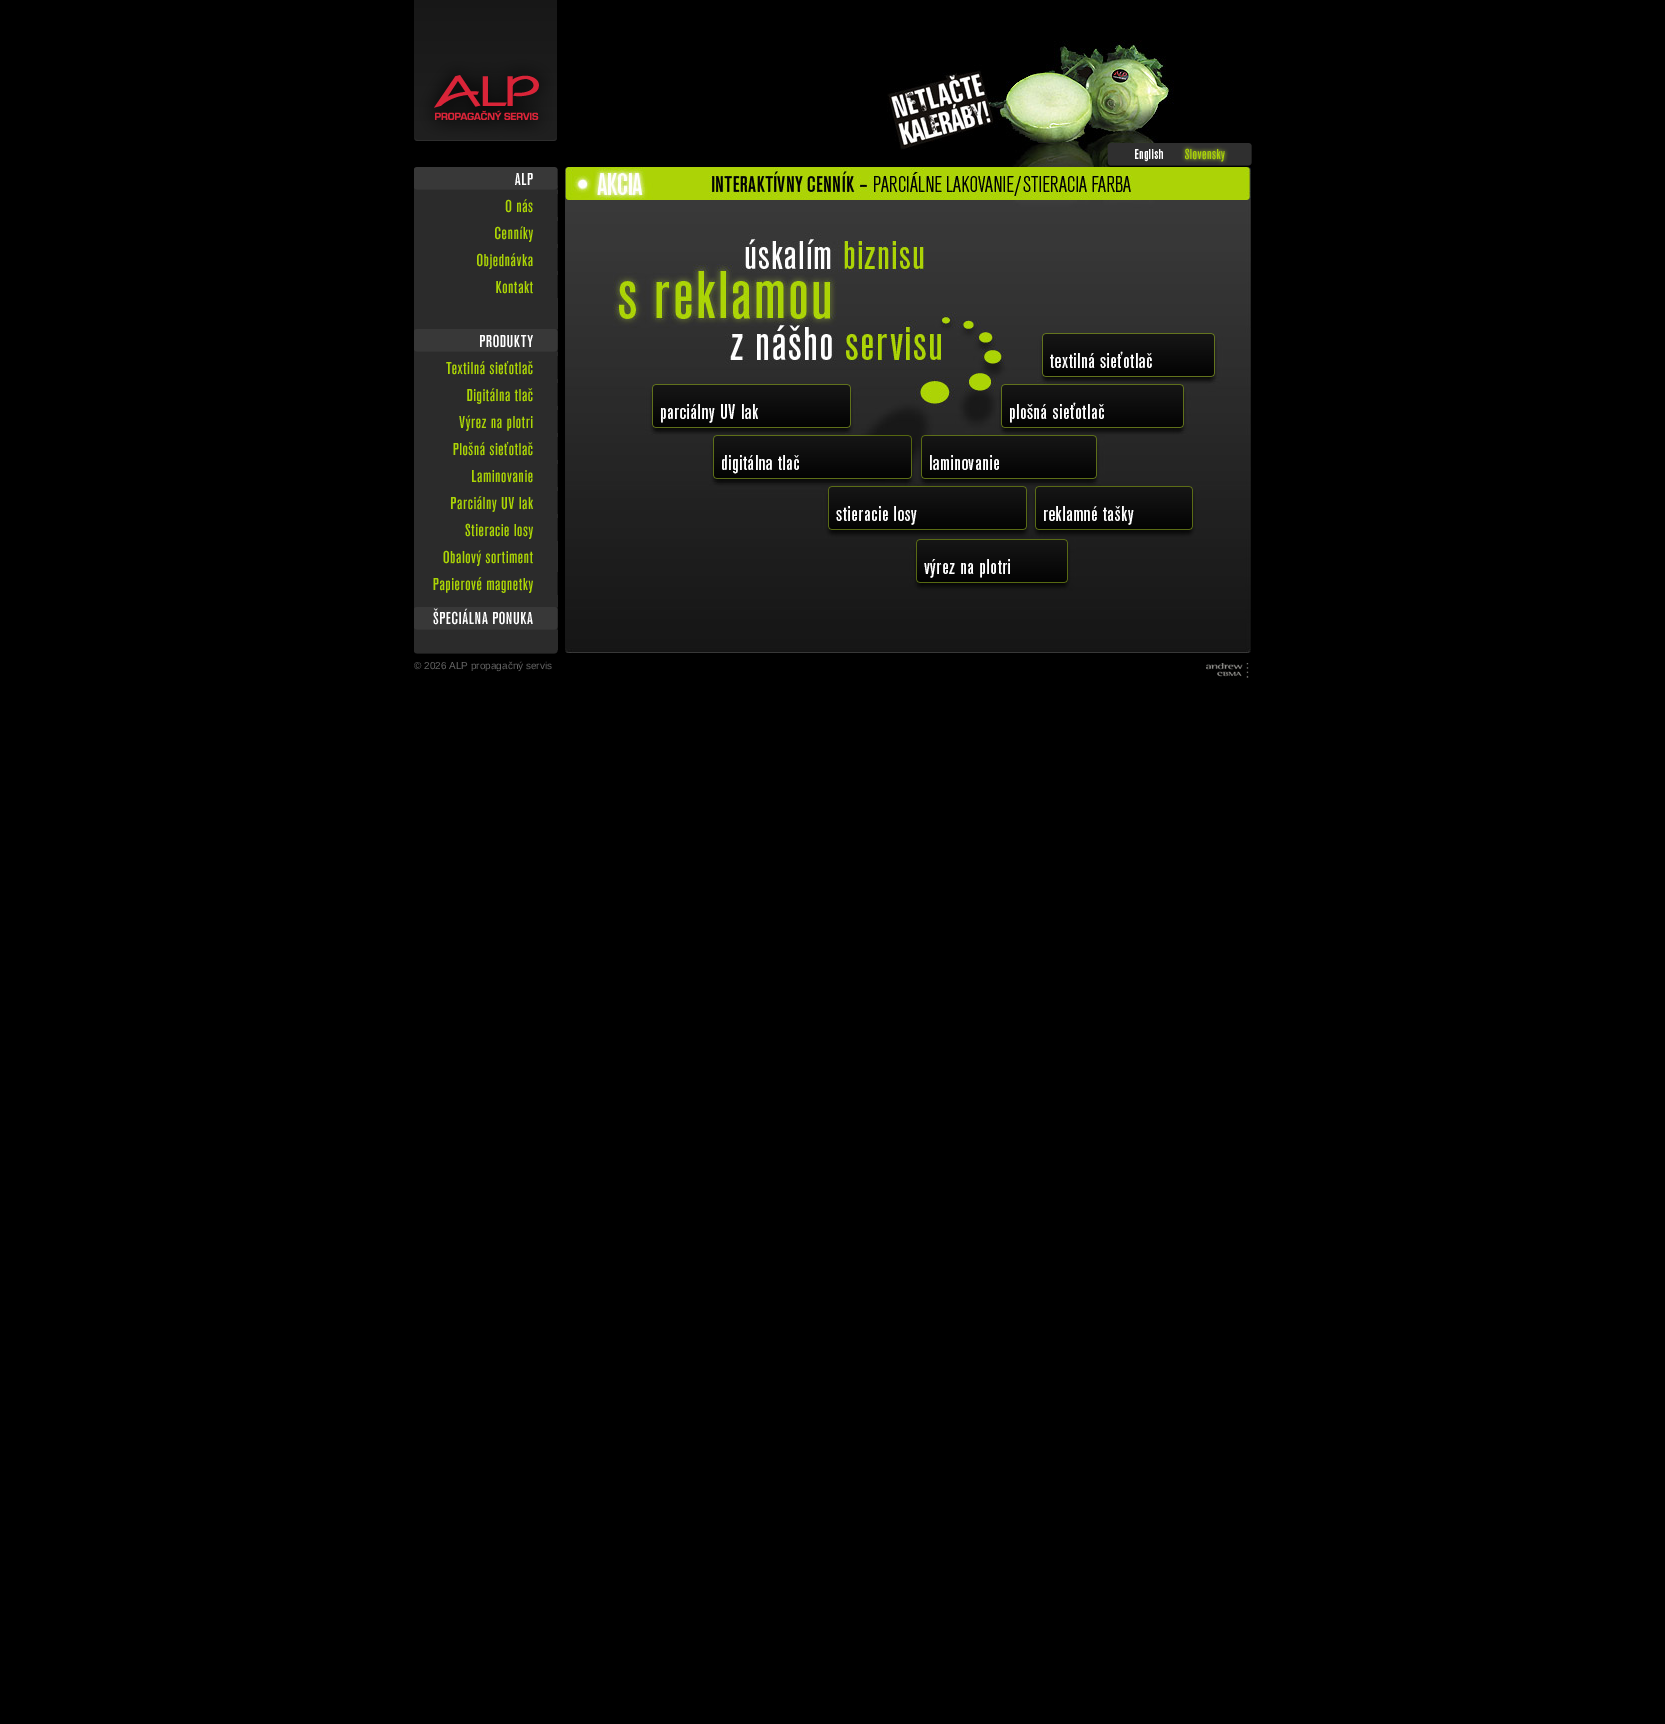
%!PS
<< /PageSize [1665 1724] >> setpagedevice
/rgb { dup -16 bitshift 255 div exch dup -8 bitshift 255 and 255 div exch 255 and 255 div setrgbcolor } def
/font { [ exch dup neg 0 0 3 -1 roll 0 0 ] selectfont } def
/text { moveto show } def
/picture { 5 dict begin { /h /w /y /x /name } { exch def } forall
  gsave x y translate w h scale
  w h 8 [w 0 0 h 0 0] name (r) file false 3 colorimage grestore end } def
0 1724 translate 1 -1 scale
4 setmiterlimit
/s1 { /LiberationSans-Regular 10 font 16#666666 rgb } def
16#000000 rgb
0 0 1665 1724 rectfill
(pic1.raw) 414 0 143 141 picture
(pic2.raw) 887 40 287 102 picture
(pic3.raw) 899 142 208 25 picture
(pic4.raw) 1107 142 68 25 picture
(pic5.raw) 1175 143 77 23 picture
(pic6.raw) 414 167 144 23 picture
16#2B2B2B rgb
414 190 144 4 rectfill
(pic7.raw) 414 194 144 23 picture
414 217 144 4 rectfill
(pic8.raw) 414 221 144 23 picture
414 244 144 4 rectfill
(pic9.raw) 414 248 144 23 picture
414 271 144 4 rectfill
(pic10.raw) 414 275 144 23 picture
414 298 144 31 rectfill
(pic11.raw) 414 329 144 23 picture
414 352 144 4 rectfill
(pic12.raw) 414 356 144 23 picture
414 379 144 4 rectfill
(pic13.raw) 414 383 144 23 picture
414 406 144 4 rectfill
(pic14.raw) 414 410 144 23 picture
414 433 144 4 rectfill
(pic15.raw) 414 437 144 23 picture
414 460 144 4 rectfill
(pic16.raw) 414 464 144 23 picture
414 487 144 4 rectfill
(pic17.raw) 414 491 144 23 picture
414 514 144 4 rectfill
(pic18.raw) 414 518 144 23 picture
414 541 144 4 rectfill
(pic19.raw) 414 545 144 23 picture
414 568 144 4 rectfill
(pic20.raw) 414 572 144 23 picture
414 595 144 12 rectfill
(pic21.raw) 414 607 144 23 picture
414 630 144 20 rectfill
(pic22.raw) 414 650 144 4 picture
(pic23.raw) 565 167 686 33 picture
(pic24.raw) 565 200 686 133 picture
(pic25.raw) 565 333 477 44 picture
(pic26.raw) 1042 333 173 44 picture
(pic27.raw) 1215 333 36 44 picture
(pic28.raw) 565 377 686 7 picture
(pic29.raw) 565 384 87 44 picture
(pic30.raw) 652 384 199 44 picture
(pic31.raw) 851 384 150 44 picture
(pic32.raw) 1001 384 183 44 picture
(pic33.raw) 1184 384 67 44 picture
(pic34.raw) 565 428 686 7 picture
(pic35.raw) 565 435 148 44 picture
(pic36.raw) 713 435 199 44 picture
(pic37.raw) 912 435 9 44 picture
(pic38.raw) 921 435 176 44 picture
(pic39.raw) 1097 435 154 44 picture
(pic40.raw) 565 479 686 7 picture
(pic41.raw) 565 486 263 44 picture
(pic42.raw) 828 486 199 44 picture
(pic43.raw) 1027 486 8 44 picture
(pic44.raw) 1035 486 158 44 picture
(pic45.raw) 1193 486 58 44 picture
(pic46.raw) 565 530 686 9 picture
(pic47.raw) 565 539 351 44 picture
(pic48.raw) 916 539 152 44 picture
(pic49.raw) 1068 539 183 44 picture
(pic50.raw) 565 583 686 70 picture
s1
(© 2026 ALP propagačný servis) 414 669 text
(pic51.raw) 1206 663 43 15 picture
showpage
